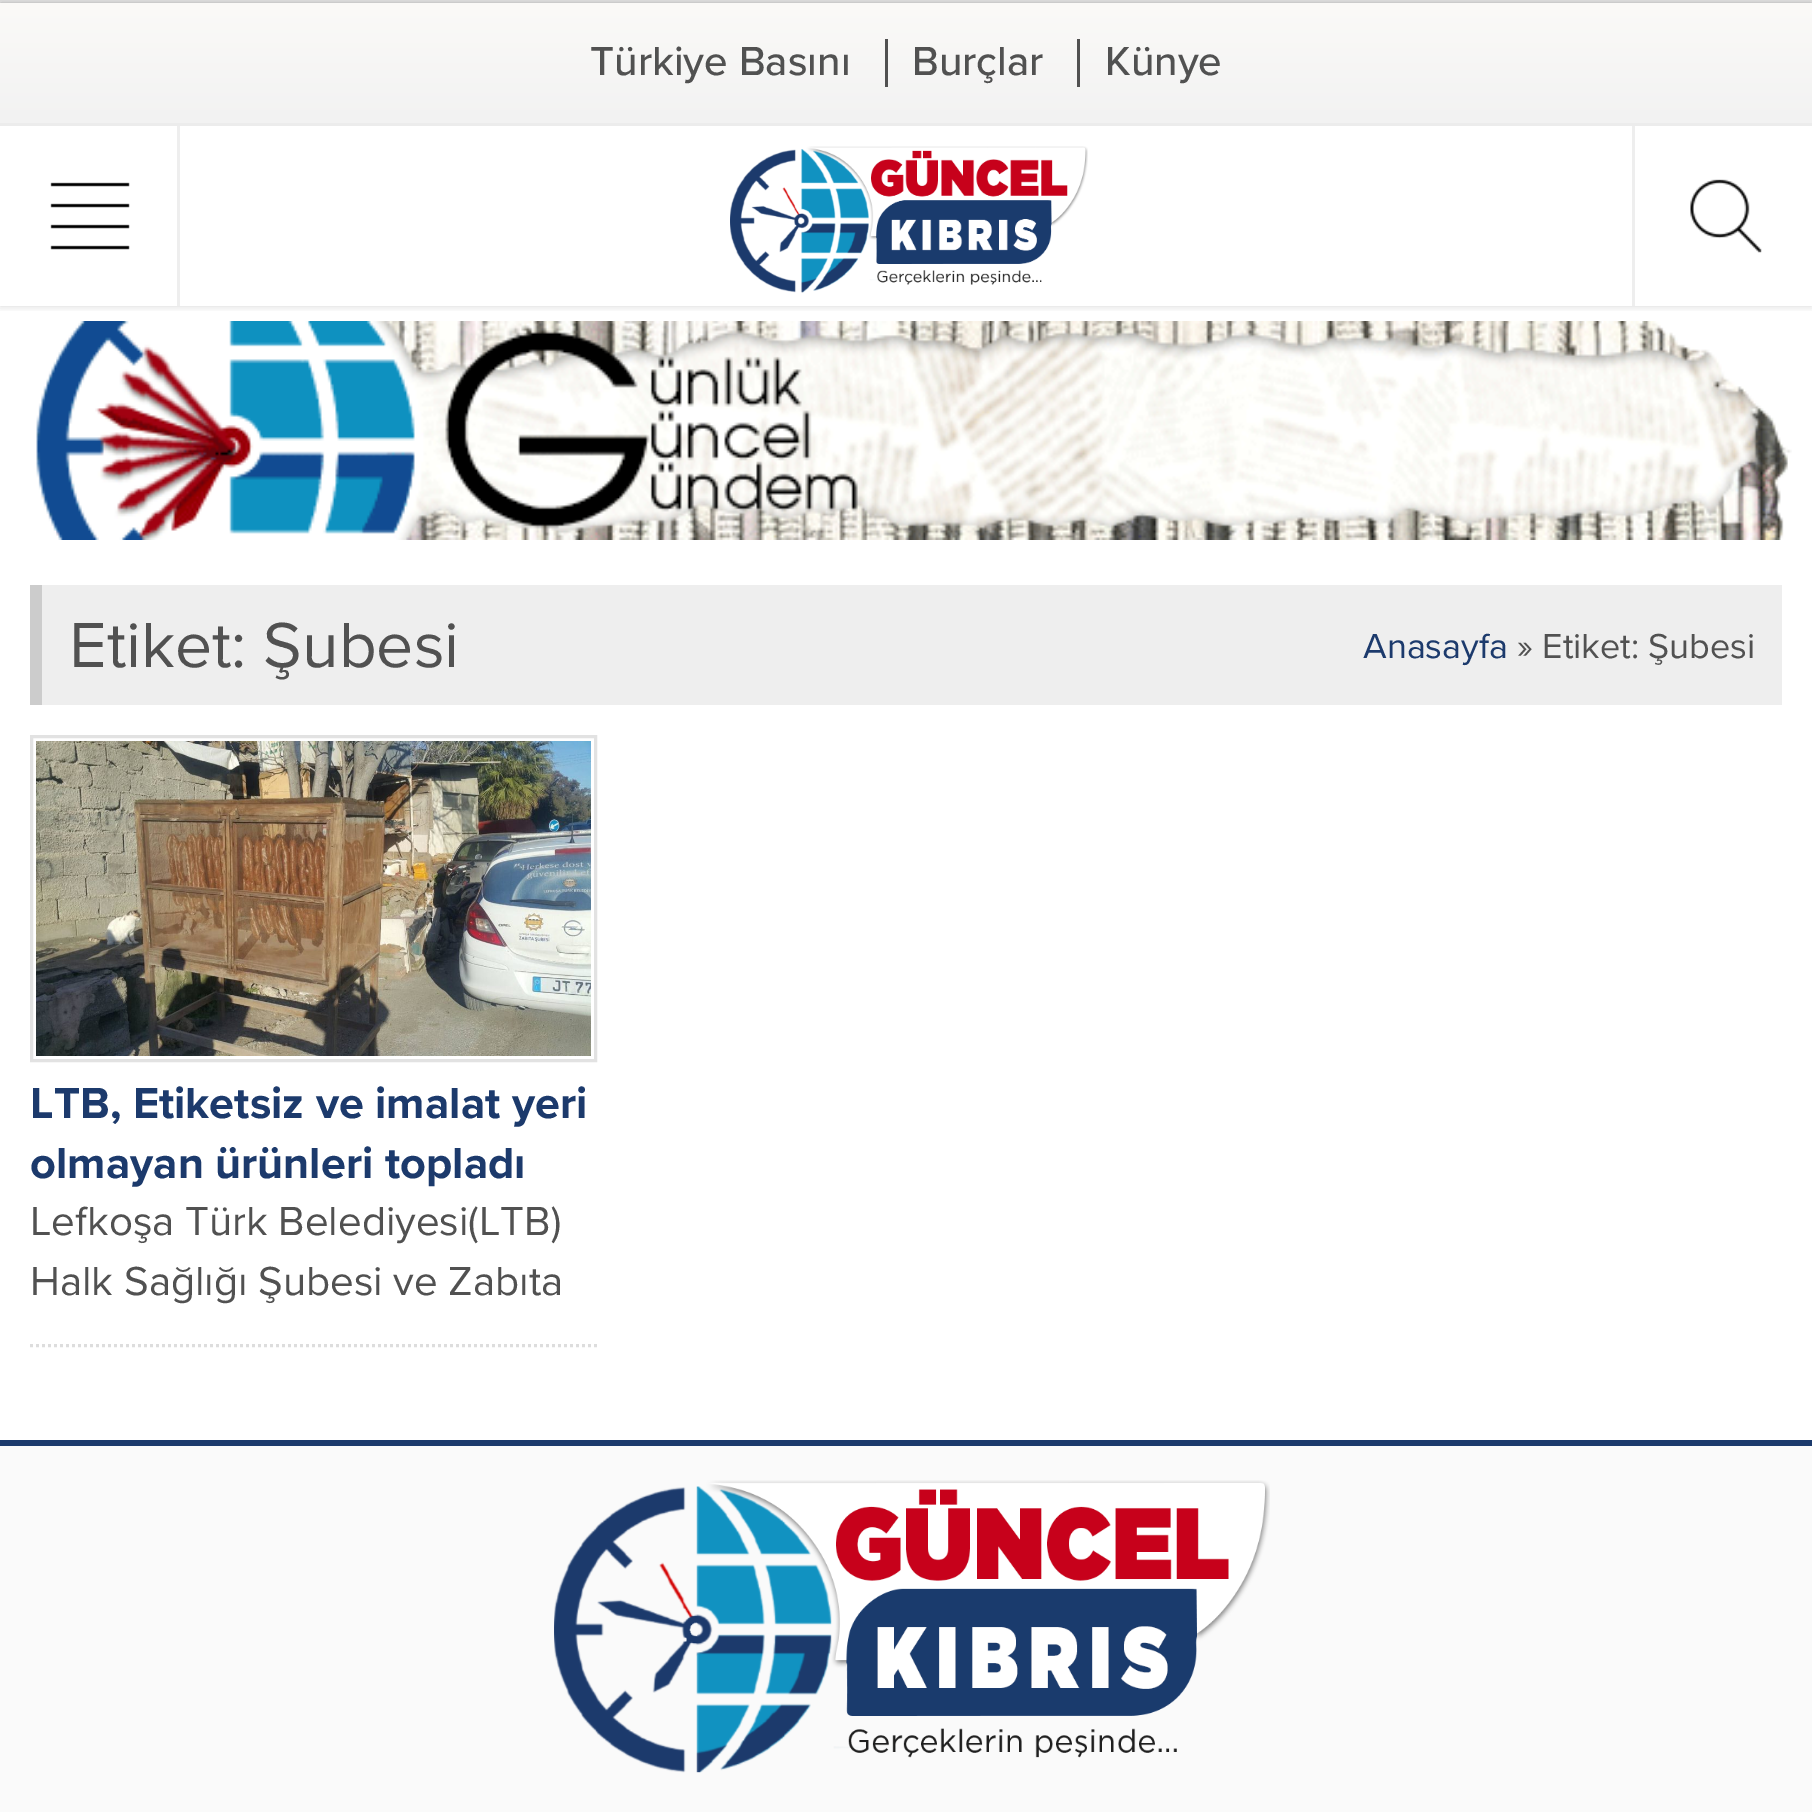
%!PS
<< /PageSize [1812 1812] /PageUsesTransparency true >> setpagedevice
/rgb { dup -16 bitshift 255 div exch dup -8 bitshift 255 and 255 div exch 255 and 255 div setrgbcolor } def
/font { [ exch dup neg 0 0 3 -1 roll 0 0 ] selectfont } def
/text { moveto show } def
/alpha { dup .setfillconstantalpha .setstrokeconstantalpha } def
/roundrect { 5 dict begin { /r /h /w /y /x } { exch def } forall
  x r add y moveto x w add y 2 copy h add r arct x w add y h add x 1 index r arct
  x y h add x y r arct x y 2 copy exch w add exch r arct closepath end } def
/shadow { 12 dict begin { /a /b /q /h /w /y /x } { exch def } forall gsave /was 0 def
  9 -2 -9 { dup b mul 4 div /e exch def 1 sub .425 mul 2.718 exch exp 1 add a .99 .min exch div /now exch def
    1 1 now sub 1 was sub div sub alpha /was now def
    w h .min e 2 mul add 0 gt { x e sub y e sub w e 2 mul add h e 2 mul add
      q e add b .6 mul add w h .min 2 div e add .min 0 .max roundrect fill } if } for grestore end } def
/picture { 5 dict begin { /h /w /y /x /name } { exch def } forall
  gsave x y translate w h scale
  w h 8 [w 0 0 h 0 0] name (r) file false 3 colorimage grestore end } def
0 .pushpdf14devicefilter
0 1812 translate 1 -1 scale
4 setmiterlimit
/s1 { /ProximaNova-Medium 42 font 16#515151 rgb } def
/s2 { /ProximaNova-Regular 66 font 16#515151 rgb } def
/s3 { /ProximaNova-Regular 36 font 16#1C3A6C rgb } def
/s4 { /ProximaNova-Regular 36 font 16#515151 rgb } def
/s5 { /ProximaNova-Bold 45 font 16#1C3A6C rgb } def
/s6 { /ProximaNova-Regular 42 font 16#515151 rgb } def
16#EEEEEE rgb
0 0 1812 1812 rectfill
16#000000 rgb
0 3 1812 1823 0 4.5 0.3 shadow
16#FFFFFF rgb
0 126 1812 1314 rectfill
gsave 0 3 moveto 1812 3 lineto 1812 123 lineto 0 123 lineto closepath clip newpath
<< /ShadingType 2 /ColorSpace /DeviceRGB /Coords [906 3 906 123] /Extend [true true] /Function << /FunctionType 2 /Domain [0 1] /C0 [0.984 0.98 0.973] /C1 [0.949 0.949 0.949] /N 1 >> >> shfill grestore
16#ECECEC rgb
0 123 1812 3 rectfill
gsave
591 33 630 60 rectclip
s1
(Türkiye Basını) 590 75 text
grestore
16#515151 rgb
885 39 3 48 rectfill
s1
(Burçlar) 912 75 text
1077 39 3 48 rectfill
(Künye) 1105 75 text
gsave
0 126 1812 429 rectclip
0 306 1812 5 rectclip
16#000000 rgb
0 126 1812 180 0 4.5 0.15 shadow
grestore
(pic1.raw) 730 146 358 147 picture
16#EEEEEE rgb
177 126 3 180 rectfill
(pic2.raw) 50 182 80 68 picture
1632 126 3 180 rectfill
(pic3.raw) 1690 179 72 74 picture
(pic4.raw) 36 321 1756 219 picture
42 585 1740 120 rectfill
16#CCCCCC rgb
30 585 12 120 rectfill
s2
(Etiket: Şubesi) 69 667 text
s3
(Anasayfa) 1363 658 text
s4
(» Etiket: Şubesi) 1517 658 text
16#DDDDDD rgb
3 setlinewidth
[3 3] 0 setdash
30 1345.5 moveto 597 1345.5 lineto stroke
16#E2E2E2 rgb
[] 0 setdash
31.5 736.5 564 324 rectstroke
(pic5.raw) 36 741 555 315 picture
s5
(LTB, Etiketsiz ve imalat yeri) 30 1118 text
(olmayan ürünleri topladı) 30 1178 text
s6
(Lefkoşa Türk Belediyesi\(LTB\)) 30 1235 text
(Halk Sağlığı Şubesi ve Zabıta) 30 1295 text
16#1C3A6C rgb
0 1440 1812 6 rectfill
16#FAFAFA rgb
0 1446 1812 366 rectfill
(pic6.raw) 554 1480 716 293 picture
.poppdf14devicefilter showpage
